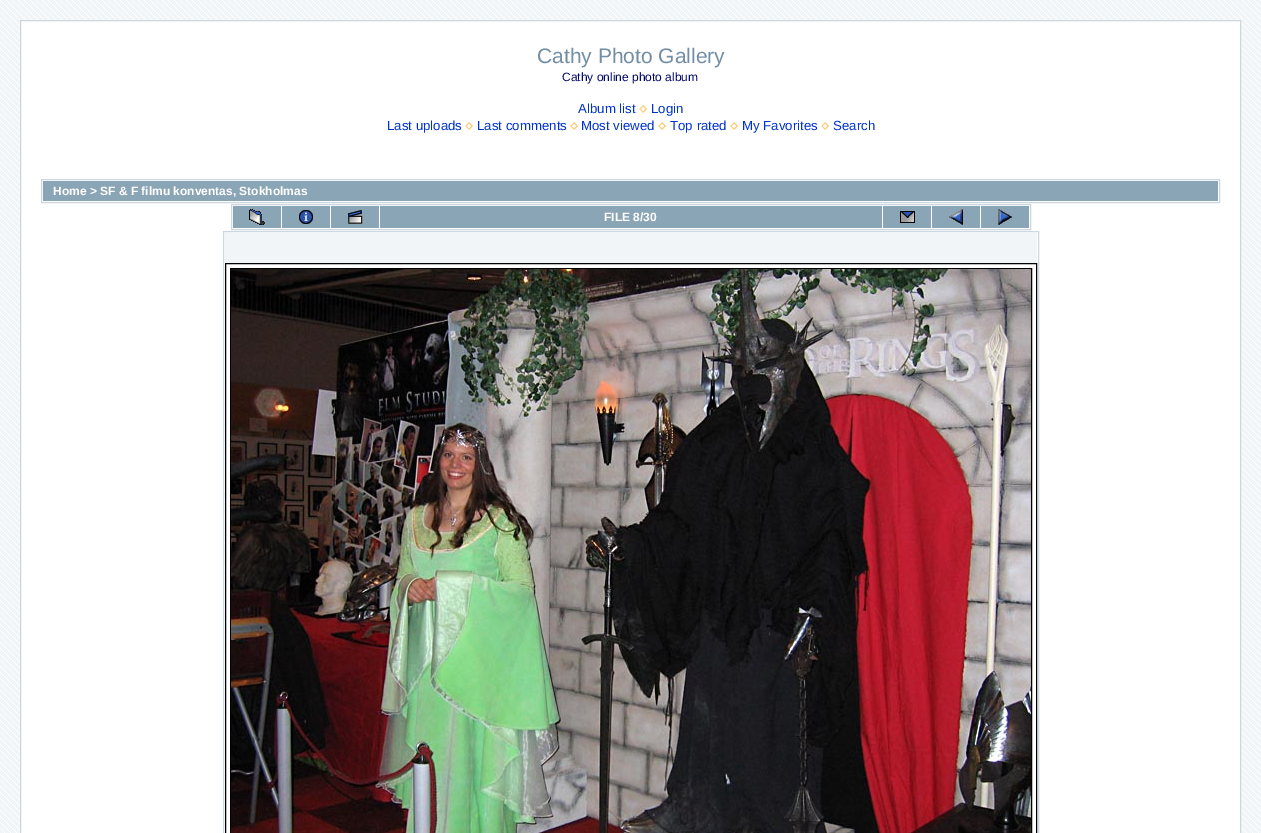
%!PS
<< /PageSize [1261 833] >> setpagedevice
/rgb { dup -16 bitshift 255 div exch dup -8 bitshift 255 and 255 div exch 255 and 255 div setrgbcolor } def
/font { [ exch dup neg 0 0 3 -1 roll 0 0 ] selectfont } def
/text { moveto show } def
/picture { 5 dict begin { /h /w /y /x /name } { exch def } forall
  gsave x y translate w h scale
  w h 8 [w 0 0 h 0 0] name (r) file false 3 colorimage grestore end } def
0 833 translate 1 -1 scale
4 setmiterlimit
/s1 { /LiberationSans-Regular 21 font 16#718EA5 rgb } def
/s2 { /LiberationSans-Regular 12 font 16#000666 rgb } def
/s3 { /LiberationSans-Regular 13.25 font 16#0033CC rgb } def
/s4 { /LiberationSans-Bold 12 font 16#FFFFFF rgb } def
16#F2F5F7 rgb
0 0 1261 833 rectfill
(pic1.raw) 0 0 1261 833 picture
16#FFFFFF rgb
20.5 20.5 moveto 1240.5 20.5 lineto 1240.5 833.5 lineto 20.5 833.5 lineto closepath gsave fill grestore
16#CCD7E0 rgb
stroke
s1
(Cathy Photo Gallery) 537 63 text
s2
(Cathy online photo album) 562 81 text
s3
(Album list) 578 113 text
(pic2.raw) 639 105 8 8 picture
(Login) 651 113 text
(Last uploads) 387 130 text
(pic2.raw) 465 122 8 8 picture
(Last comments) 477 130 text
(pic2.raw) 570 122 8 8 picture
(Most viewed) 581 130 text
(pic2.raw) 658 122 8 8 picture
(Top rated) 670 130 text
(pic2.raw) 730 122 8 8 picture
(My Favorites) 742 130 text
(pic2.raw) 821 122 8 8 picture
(Search) 833 130 text
16#CCD7E0 rgb
41.5 179.5 1178 23 rectstroke
16#8AA5B5 rgb
43 181 1175 20 rectfill
s4
(Home > SF & F filmu konventas, Stokholmas) 53 195 text
16#CCD7E0 rgb
231.5 204.5 799 25 rectstroke
16#8AA5B5 rgb
233 206 48 22 rectfill
(pic3.raw) 249 209 16 16 picture
282 206 48 22 rectfill
(pic4.raw) 299 210 14 14 picture
331 206 48 22 rectfill
(pic5.raw) 348 210 15 14 picture
380 206 502 22 rectfill
s4
(FILE 8/30) 604 221 text
16#8AA5B5 rgb
883 206 48 22 rectfill
(pic6.raw) 900 211 15 12 picture
932 206 48 22 rectfill
(pic7.raw) 949 209 14 16 picture
981 206 48 22 rectfill
(pic8.raw) 998 209 14 16 picture
16#CCD7E0 rgb
223.5 231.5 815 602 rectstroke
16#F2F5F7 rgb
225 233 812 30 rectfill
16#000000 rgb
225.5 263.5 811 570 rectstroke
230.5 268.5 801 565 rectstroke
(pic9.raw) 231 269 800 564 picture
showpage
